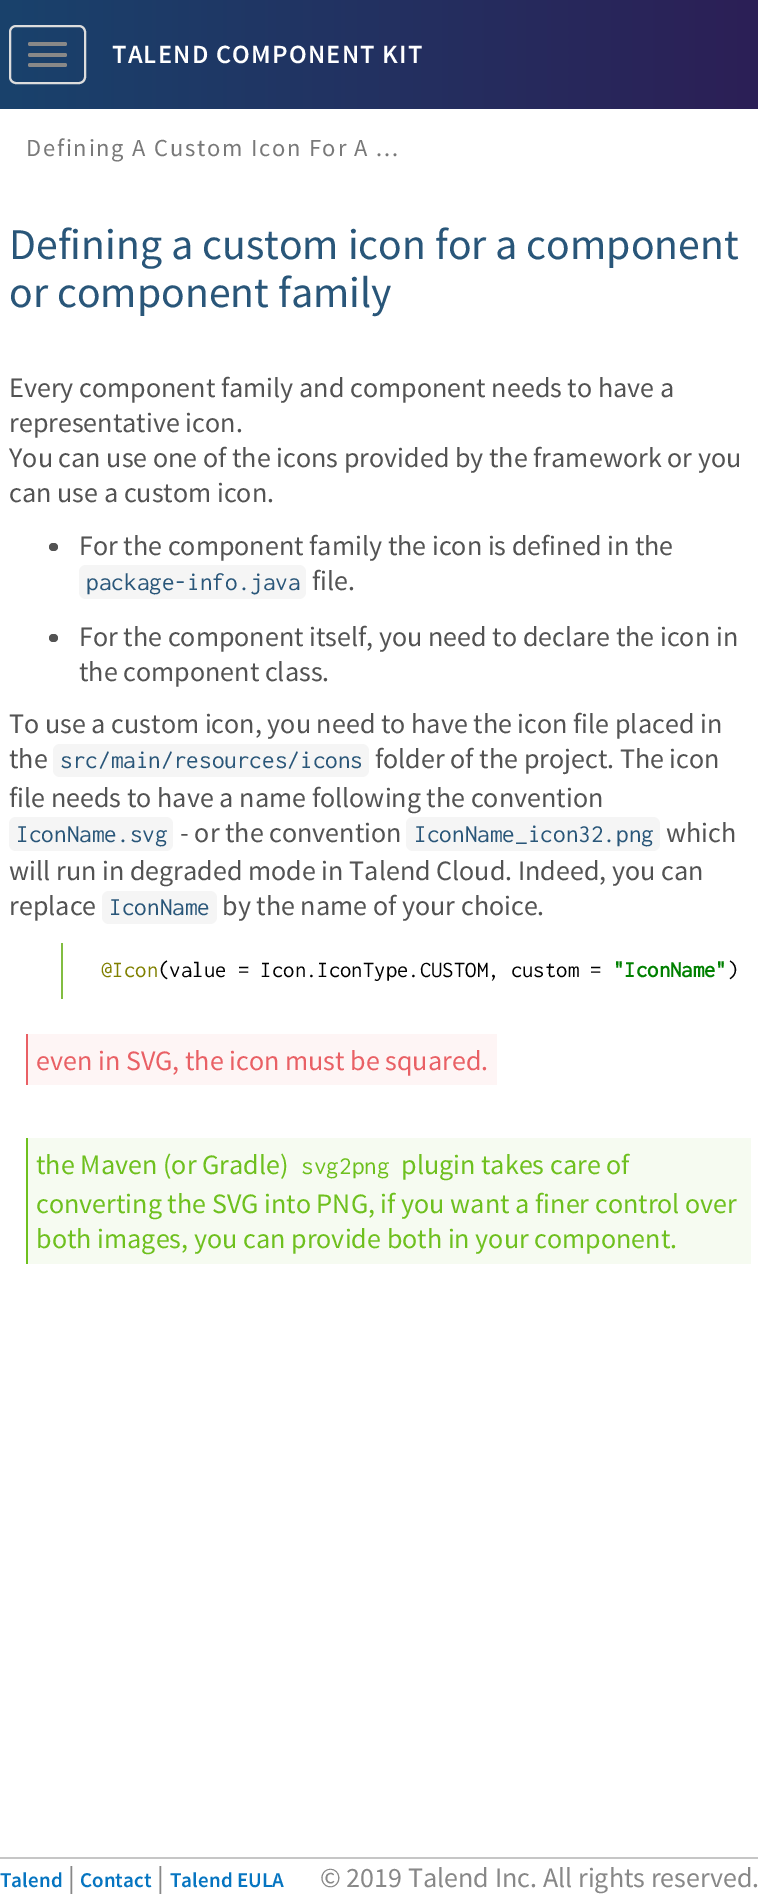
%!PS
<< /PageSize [758 1896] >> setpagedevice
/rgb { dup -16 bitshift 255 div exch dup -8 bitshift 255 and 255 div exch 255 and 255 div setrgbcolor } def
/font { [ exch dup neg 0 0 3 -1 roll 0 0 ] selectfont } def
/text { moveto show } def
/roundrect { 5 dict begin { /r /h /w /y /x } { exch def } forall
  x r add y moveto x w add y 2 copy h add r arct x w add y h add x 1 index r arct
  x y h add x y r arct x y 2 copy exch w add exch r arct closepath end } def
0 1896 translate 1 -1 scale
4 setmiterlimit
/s1 { /SourceSansPro-Regular 43.75 font 16#295679 rgb } def
/s2 { /SourceSansPro-Regular 28 font 16#535353 rgb } def
/s3 { /Inconsolata-Regular 25.25 font 16#295679 rgb } def
/s4 { /Inconsolata-Regular 22.75 font 16#808000 rgb } def
/s5 { /Inconsolata-Regular 22.75 font 16#000000 rgb } def
/s6 { /Inconsolata-Bold 22.75 font 16#008000 rgb } def
/s7 { /SourceSansPro-Regular 28 font 16#E96065 rgb } def
/s8 { /SourceSansPro-Regular 28 font 16#6EC01E rgb } def
/s9 { /Inconsolata-Regular 25.25 font 16#6EC01E rgb } def
/s10 { /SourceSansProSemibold-SemiBold 21 font 16#0675C1 rgb } def
/s11 { /SourceSansPro-Regular 28 font 16#888888 rgb } def
16#FFFFFF rgb
0 0 758 1896 rectfill
gsave 0 0 moveto 758 0 lineto 758 109 lineto 0 109 lineto closepath clip newpath
<< /ShadingType 2 /ColorSpace /DeviceRGB /Coords [0 54 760 54] /Extend [true true] /Function << /FunctionType 2 /Domain [0 1] /C0 [0.098 0.259 0.424] /C1 [0.173 0.122 0.337] /N 1 >> >> shfill grestore
16#DDDDDD rgb
2 setlinewidth
10 26 75 57 6 roundrect stroke
16#888888 rgb
28 42 39 4 2 roundrect fill
28 53 39 4 2 roundrect fill
28 63 39 4 2 roundrect fill
/SourceSansProSemibold-SemiBold 26.25 font
16#FFFFFF rgb
112 63 moveto 1.25 0 (TALEND COMPONENT KIT) ashow
/SourceSansPro-Regular 24.5 font
16#797979 rgb
26 156 moveto 1.75 0 (Defining A Custom Icon For A ...) ashow
s1
(Defining a custom icon for a component) 9 259 text
(or component family) 9 307 text
s2
(Every component family and component needs to have a) 9 397 text
(representative icon.) 9 432 text
(You can use one of the icons provided by the framework or you) 9 467 text
(can use a custom icon.) 9 502 text
49 543 9 8 4 roundrect fill
(For the component family the icon is defined in the) 79 555 text
16#F5F5F5 rgb
79 565 227 34 7 roundrect fill
s3
(package-info.java) 86 590 text
s2
(file.) 312 590 text
49 634 9 8 4 roundrect fill
(For the component itself, you need to declare the icon in) 79 646 text
(the component class.) 79 681 text
(To use a custom icon, you need to have the icon file placed in) 9 733 text
(the) 9 768 text
16#F5F5F5 rgb
53 744 316 33 7 roundrect fill
s3
(src/main/resources/icons) 60 768 text
s2
(folder of the project. The icon) 375 768 text
(file needs to have a name following the convention) 9 807 text
16#F5F5F5 rgb
9 817 164 34 7 roundrect fill
s3
(IconName.svg) 16 842 text
s2
(- or the convention) 180 842 text
16#F5F5F5 rgb
406 817 254 34 7 roundrect fill
s3
(IconName_icon32.png) 414 842 text
s2
(which) 666 842 text
(will run in degraded mode in Talend Cloud. Indeed, you can) 9 880 text
(replace) 9 915 text
16#F5F5F5 rgb
102 891 115 33 7 roundrect fill
s3
(IconName) 109 915 text
s2
(by the name of your choice.) 222 915 text
16#82BD41 rgb
61 943 2 56 rectfill
s4
(@Icon) 101 977 text
s5
(\(value = Icon.IconType.CUSTOM, custom =) 158 977 text
s6
("IconName") 613 977 text
s5
(\)) 727 977 text
16#FEF5F5 rgb
28 1034 469 51 rectfill
16#E96065 rgb
26 1034 2 51 rectfill
s7
(even in SVG, the icon must be squared.) 36 1070 text
16#F6FBF1 rgb
28 1138 723 126 rectfill
16#6EC01E rgb
26 1138 2 126 rectfill
(the Maven \(or Gradle\)) 36 1174 text
s9
(svg2png) 301 1174 text
s8
(plugin takes care of) 401 1174 text
(converting the SVG into PNG, if you want a finer control over) 36 1213 text
(both images, you can provide both in your component.) 36 1248 text
16#C6C6C6 rgb
0 1857 758 2 rectfill
s10
(Talend) 0 1887 text
s11
(|) 68 1887 text
s10
(Contact) 80 1887 text
s11
(|) 157 1887 text
s10
(Talend EULA) 170 1887 text
s11
(© 2019 Talend Inc. All rights reserved.) 320 1887 text
showpage
